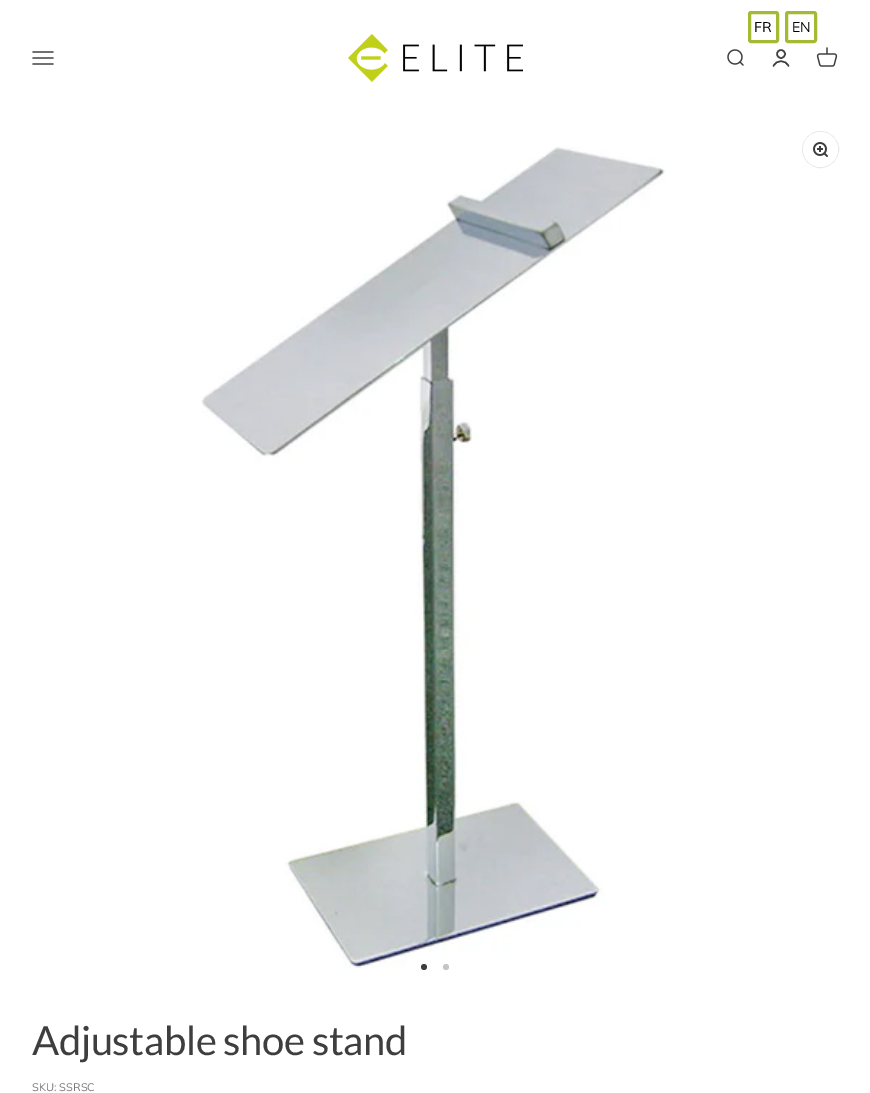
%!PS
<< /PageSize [870 1093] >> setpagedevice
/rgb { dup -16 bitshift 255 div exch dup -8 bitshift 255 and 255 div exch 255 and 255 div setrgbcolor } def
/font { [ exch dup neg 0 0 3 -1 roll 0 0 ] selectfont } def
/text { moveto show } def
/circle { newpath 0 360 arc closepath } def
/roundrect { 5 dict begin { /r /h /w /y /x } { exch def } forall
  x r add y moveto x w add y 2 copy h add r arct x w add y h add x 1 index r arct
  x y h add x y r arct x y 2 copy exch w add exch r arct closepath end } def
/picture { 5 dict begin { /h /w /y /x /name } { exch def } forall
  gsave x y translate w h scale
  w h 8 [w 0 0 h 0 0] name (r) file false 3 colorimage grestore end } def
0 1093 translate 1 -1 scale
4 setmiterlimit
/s1 { /Muli-Regular 14 font 16#000000 rgb } def
/s2 { /Muli-Regular 11 font 16#787878 rgb } def
16#FFFFFF rgb
0 0 870 1093 rectfill
16#A6B934 rgb
3 setlinewidth
749.5 12.5 28 29 1.5 roundrect stroke
s1
(FR) 754 32 text
16#A6B934 rgb
786.5 12.5 29 29 1.5 roundrect stroke
s1
(EN) 792 32 text
(pic1.raw) 32 51 22 14 picture
(pic2.raw) 348 34 175 48 picture
(pic3.raw) 727 49 17 17 picture
16#3E3E3E rgb
1.5 setlinewidth
781 54 4 circle stroke
1 setlinecap
773.5 66 moveto 776.5 59.5 785.5 59.5 788.5 66 curveto stroke
(pic4.raw) 816 47 22 20 picture
(pic5.raw) 201 146 465 823 picture
16#E8E8E8 rgb
1 setlinewidth
0 setlinecap
820.5 149.5 18 circle stroke
16#FFFFFF rgb
820.5 149.5 17.5 circle fill
(pic6.raw) 813 142 15 15 picture
16#3E3E3E rgb
424 967 3 circle fill
16#C5C5C5 rgb
446 967 3 circle fill
/Lato-Regular 40 font
16#3E3E3E rgb
32 1055 moveto -0.4 0 (Adjustable shoe stand) ashow
s2
(SKU: SSRSC) 32 1091 text
showpage
